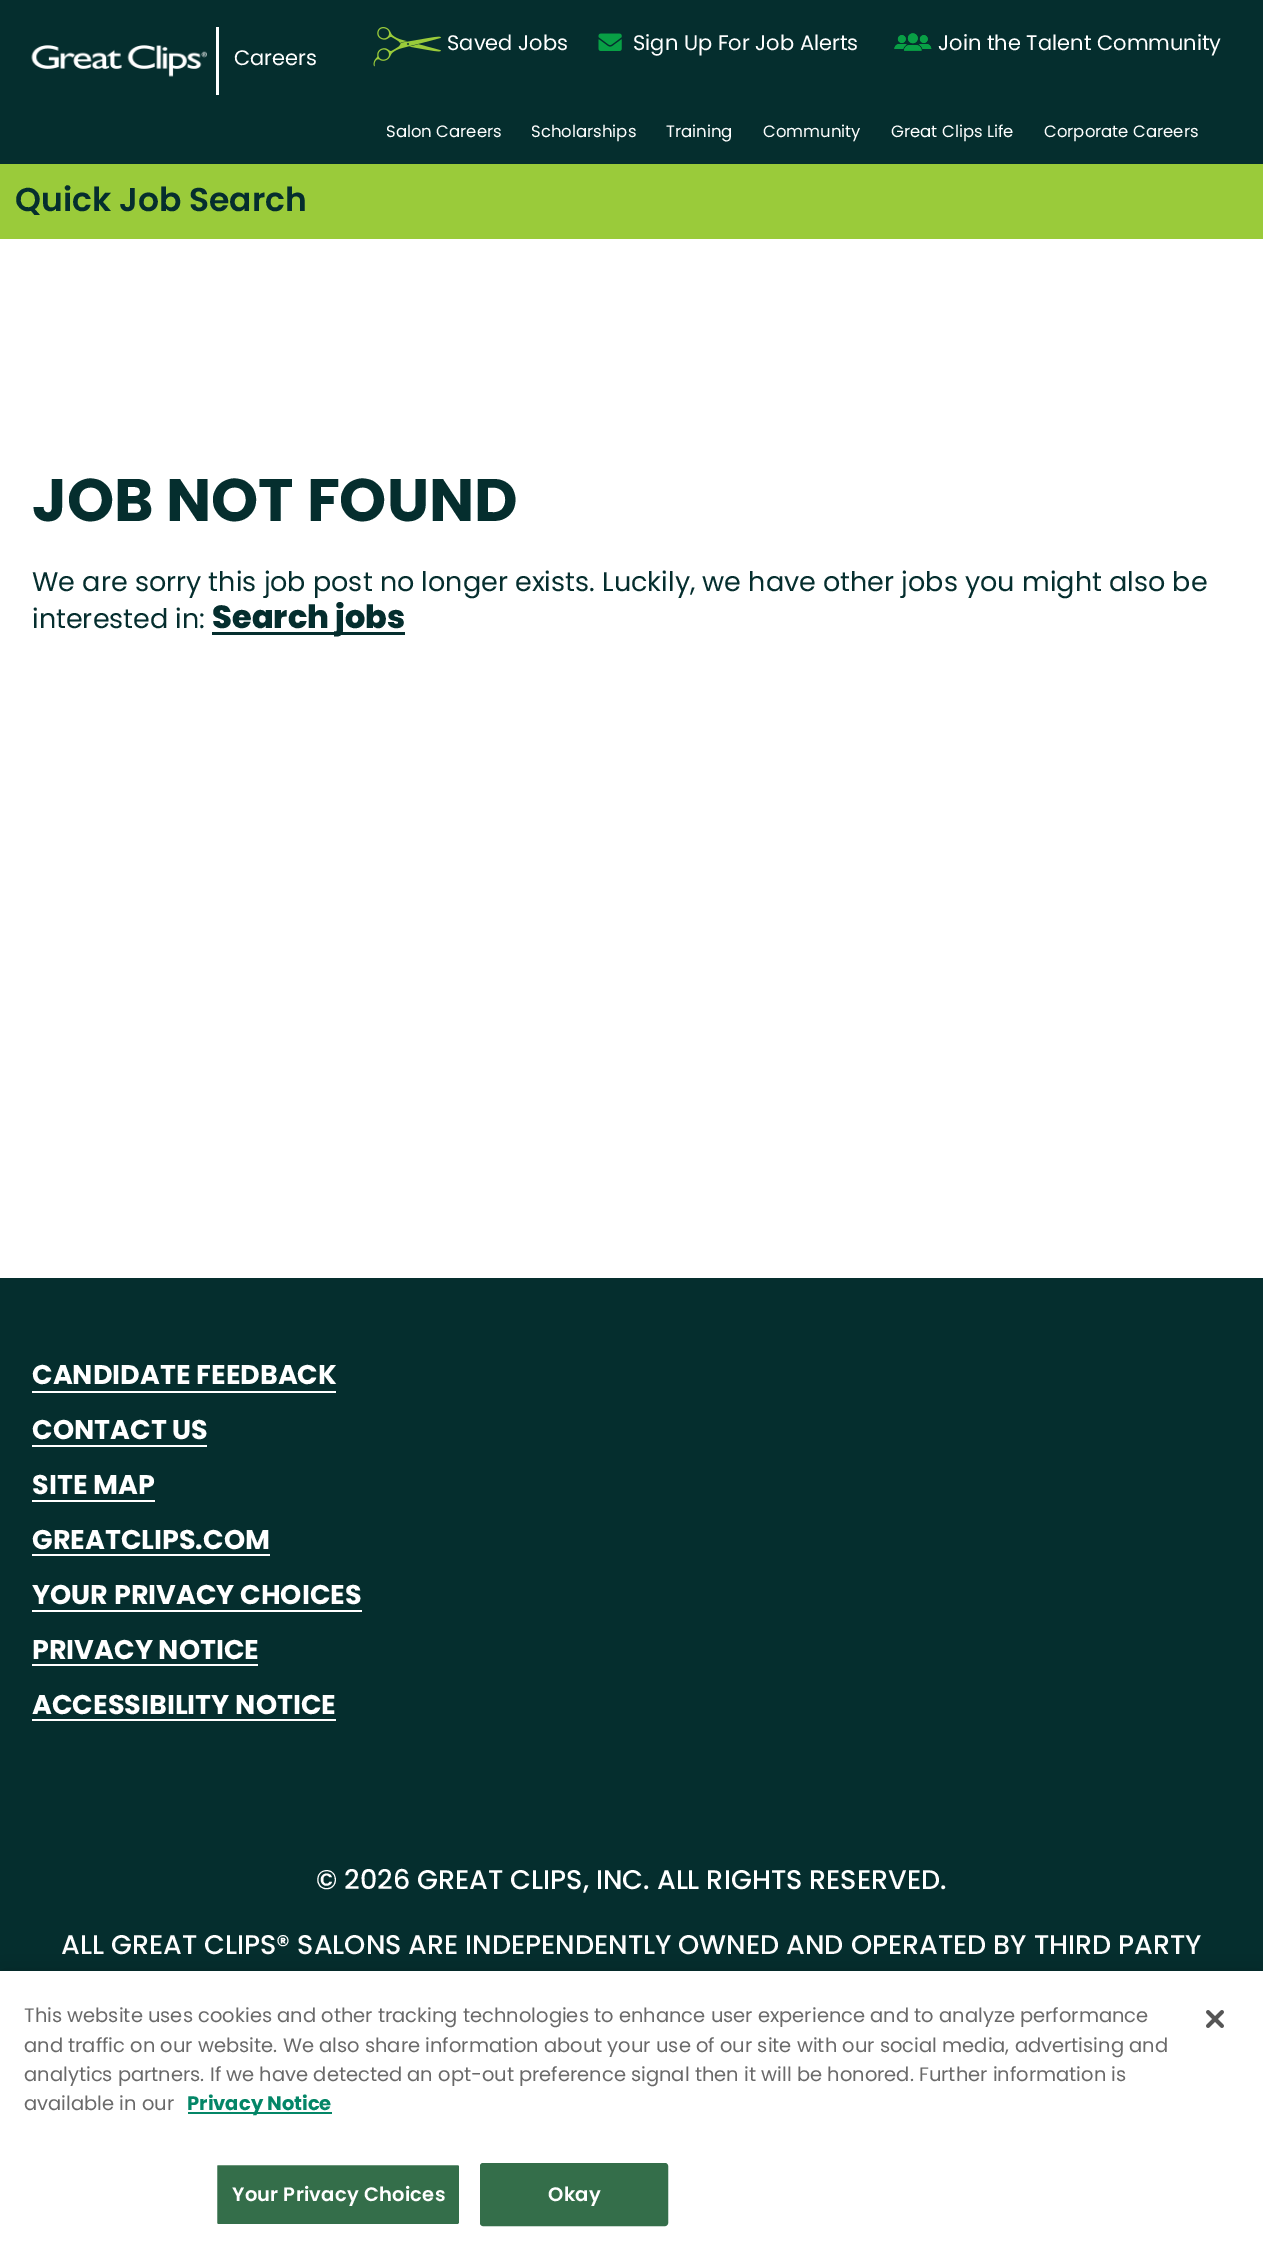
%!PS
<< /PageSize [1263 2257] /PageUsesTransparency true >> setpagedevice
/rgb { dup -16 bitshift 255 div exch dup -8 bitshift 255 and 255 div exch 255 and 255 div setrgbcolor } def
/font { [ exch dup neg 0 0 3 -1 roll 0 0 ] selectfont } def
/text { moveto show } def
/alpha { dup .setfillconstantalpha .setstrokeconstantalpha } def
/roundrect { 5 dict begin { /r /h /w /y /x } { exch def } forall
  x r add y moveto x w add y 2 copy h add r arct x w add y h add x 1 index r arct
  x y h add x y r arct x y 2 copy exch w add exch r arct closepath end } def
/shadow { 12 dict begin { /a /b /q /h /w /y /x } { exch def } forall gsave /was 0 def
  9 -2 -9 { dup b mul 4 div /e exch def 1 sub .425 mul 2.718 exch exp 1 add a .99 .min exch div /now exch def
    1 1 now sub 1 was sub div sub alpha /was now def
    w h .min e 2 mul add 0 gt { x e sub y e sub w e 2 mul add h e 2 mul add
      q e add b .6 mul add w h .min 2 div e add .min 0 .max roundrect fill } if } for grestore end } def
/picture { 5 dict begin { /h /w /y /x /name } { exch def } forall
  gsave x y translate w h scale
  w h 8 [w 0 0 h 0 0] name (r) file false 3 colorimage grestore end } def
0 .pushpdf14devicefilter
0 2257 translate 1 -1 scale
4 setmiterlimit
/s1 { /Poppins-Regular 21 font 16#FFFFFF rgb } def
/s2 { /Poppins-Regular 16.5 font 16#FFFFFF rgb } def
/s3 { /Poppins-SemiBold 33 font 16#052E2E rgb } def
/s4 { /Poppins-Bold 60 font 16#052E2E rgb } def
/s5 { /Poppins-Regular 27 font 16#052E2E rgb } def
/s6 { /Poppins-ExtraBold 32 font 16#052E2E rgb } def
/s7 { /Poppins-Bold 27 font 16#FFFFFF rgb } def
/s8 { /Poppins-Medium 27 font 16#FFFFFF rgb } def
/s9 { /Poppins-Regular 19.5 font 16#696969 rgb } def
/s10 { /Poppins-Bold 19.5 font 16#048667 rgb } def
16#FFFFFF rgb
0 0 1263 2257 rectfill
16#052E2E rgb
0 0 1263 164 rectfill
(pic1.raw) 373 27 68 40 picture
s1
(Saved Jobs) 447 50 text
(pic2.raw) 598 33 24 18 picture
(Sign Up For Job Alerts) 633 50 text
(pic3.raw) 894 33 38 18 picture
(Join the Talent Community) 938 50 text
(pic4.raw) 31 45 176 32 picture
216 27 3 68 rectfill
(Careers) 234 65 text
s2
(Salon Careers) 386 137 text
(Scholarships) 531 137 text
(Training) 666 137 text
(Community) 763 137 text
(Great Clips Life) 891 137 text
(Corporate Careers) 1044 137 text
16#9ACB3A rgb
0 164 1263 75 rectfill
s3
(Quick Job Search) 15 211 text
s4
(JOB NOT FOUND) 32 521 text
s5
(We are sorry this job post no longer exists. Luckily, we have other jobs you might also be) 32 591 text
(interested in:) 32 628 text
212 632 193 3 rectfill
s6
(Search jobs) 212 628 text
0 1278 1263 693 rectfill
s7
(CANDIDATE FEEDBACK) 32 1384 text
32 1391 304 2 rectfill
(CONTACT US) 32 1439 text
32 1445 175 2 rectfill
(SITE MAP) 32 1494 text
32 1500 123 2 rectfill
(GREATCLIPS.COM) 32 1549 text
32 1554 238 2 rectfill
(YOUR PRIVACY CHOICES) 32 1604 text
32 1610 330 2 rectfill
(PRIVACY NOTICE) 32 1659 text
32 1664 226 2 rectfill
(ACCESSIBILITY NOTICE) 32 1714 text
32 1719 304 2 rectfill
s8
(© 2026 GREAT CLIPS, INC. ALL RIGHTS RESERVED.) 316 1889 text
(ALL GREAT CLIPS® SALONS ARE INDEPENDENTLY OWNED AND OPERATED BY THIRD PARTY) 61 1954 text
16#000000 rgb
0 1971 1263 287 0 13.5 0.2 shadow
16#FFFFFF rgb
0 1971 1263 286 rectfill
s9
(This website uses cookies and other tracking technologies to enhance user experience and to analyze performance) 24 2022 text
(and traffic on our website. We also share information about your use of our site with our social media, advertising and) 24 2052 text
(analytics partners. If we have detected an opt-out preference signal then it will be honored. Further information is) 24 2081 text
(available in our) 24 2110 text
16#048667 rgb
188 2112 144 2 rectfill
s10
(Privacy Notice) 187 2110 text
16#346E4A rgb
216 2164 244 61 2 roundrect gsave fill grestore
16#FFFFFF rgb
2 setlinewidth
stroke
/Poppins-SemiBold 19.5 font
232 2201 moveto 0.25 0 (Your Privacy Choices) ashow
16#346E4A rgb
481 2164 186 61 2 roundrect gsave fill grestore
stroke
16#FFFFFF rgb
548 2201 moveto 0.25 0 (Okay) ashow
(pic5.raw) 1206 2010 18 18 picture
.poppdf14devicefilter showpage
